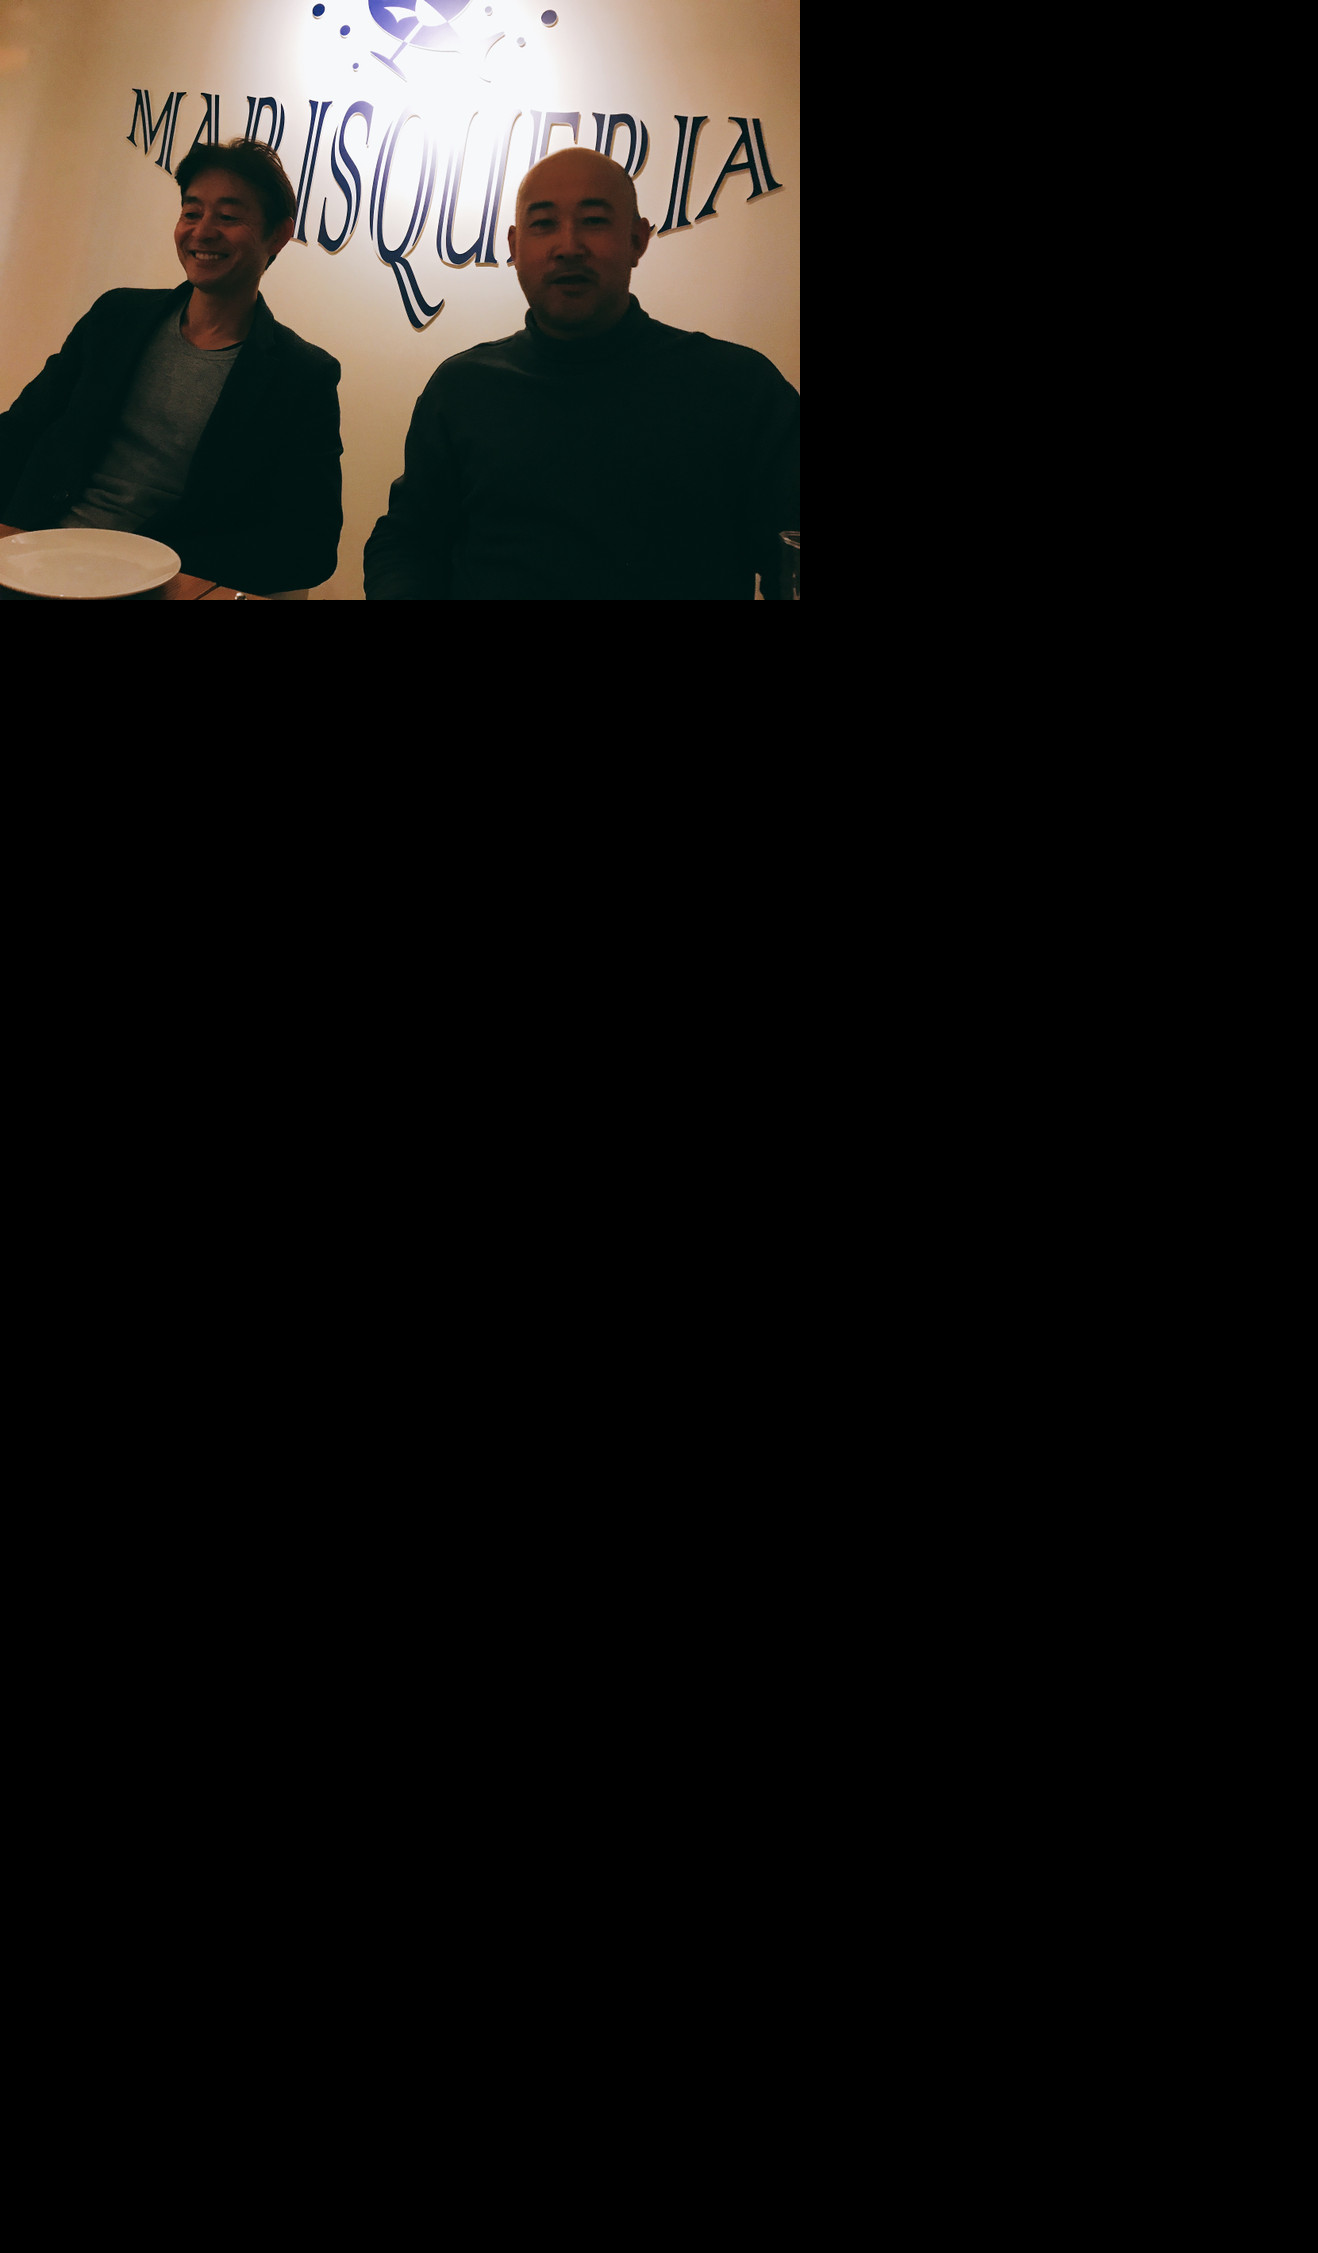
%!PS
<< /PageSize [1318 2253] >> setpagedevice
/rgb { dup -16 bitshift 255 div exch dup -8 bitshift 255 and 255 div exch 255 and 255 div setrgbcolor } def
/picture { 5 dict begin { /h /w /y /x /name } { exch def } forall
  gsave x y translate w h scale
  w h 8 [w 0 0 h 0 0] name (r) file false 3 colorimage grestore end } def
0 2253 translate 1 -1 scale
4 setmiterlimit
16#000000 rgb
0 0 1318 2253 rectfill
(pic1.raw) 0 0 800 600 picture
showpage
